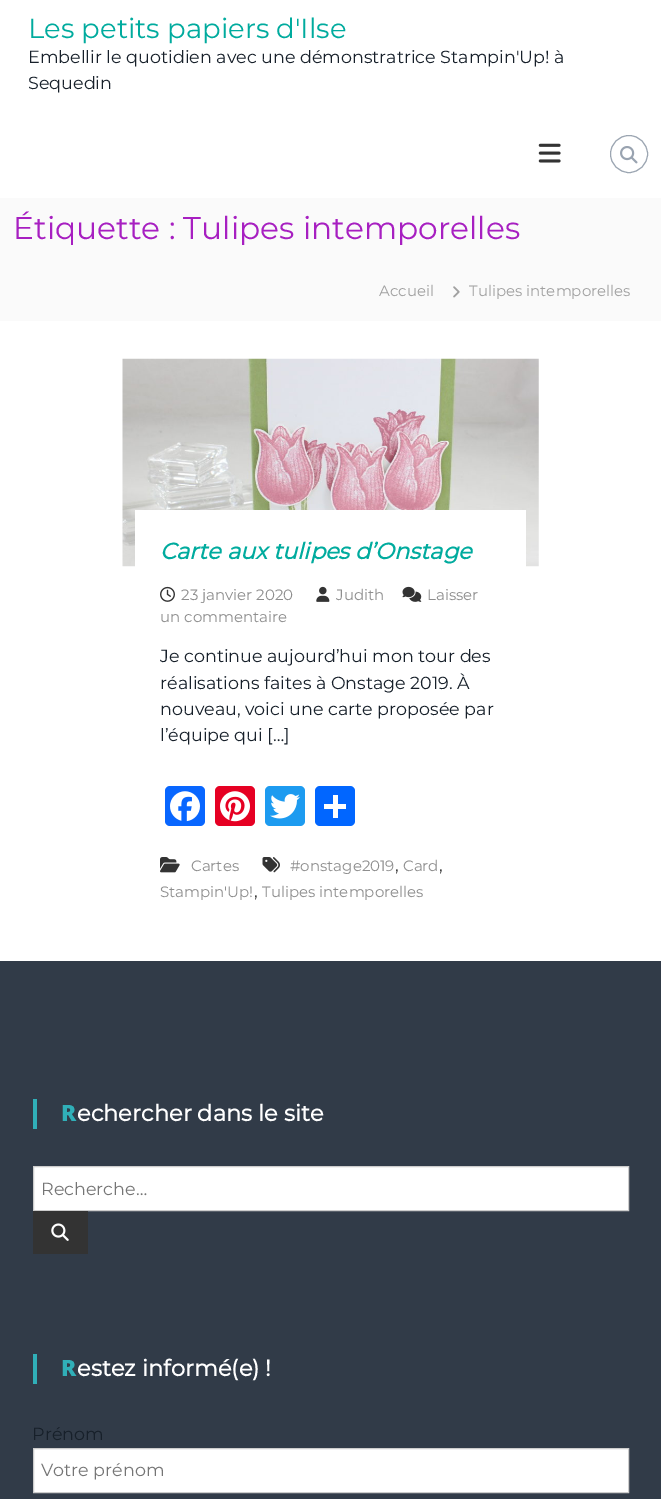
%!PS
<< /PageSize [661 1499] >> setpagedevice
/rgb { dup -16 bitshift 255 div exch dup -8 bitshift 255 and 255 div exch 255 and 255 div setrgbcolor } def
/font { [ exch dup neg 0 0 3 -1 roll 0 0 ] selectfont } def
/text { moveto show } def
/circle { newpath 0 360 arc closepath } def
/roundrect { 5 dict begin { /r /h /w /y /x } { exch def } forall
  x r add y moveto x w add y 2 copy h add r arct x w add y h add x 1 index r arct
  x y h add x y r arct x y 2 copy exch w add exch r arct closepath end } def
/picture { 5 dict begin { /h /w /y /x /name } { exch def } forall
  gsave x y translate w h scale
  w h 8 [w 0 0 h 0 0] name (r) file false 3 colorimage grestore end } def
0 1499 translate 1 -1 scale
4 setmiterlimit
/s1 { /Montserrat-Regular 27.5 font 16#00AB9E rgb } def
/s2 { /Montserrat-Regular 17.5 font 16#17202A rgb } def
/s3 { /Montserrat-Regular 31.25 font 16#A71FC1 rgb } def
/s4 { /Montserrat-Regular 15 font 16#A1A1A1 rgb } def
/s5 { /Montserrat-BoldItalic 22.5 font 16#00AB9E rgb } def
/s6 { /Montserrat-Regular 15 font 16#8E8E8E rgb } def
/s7 { /Montserrat-Regular 17.5 font 16#333333 rgb } def
/s8 { /NotoSans-Black 22.5 font 16#30AFB8 rgb } def
/s9 { /Montserrat-Bold 22.5 font 16#FFFFFF rgb } def
/s10 { /Montserrat-Regular 17.5 font 16#757575 rgb } def
16#FFFFFF rgb
0 0 661 1499 rectfill
s1
(Les petits papiers d'Ilse) 28 38 text
s2
(Embellir le quotidien avec une démonstratrice Stampin'Up! à) 28 63 text
(Sequedin) 28 89 text
(pic1.raw) 538 143 23 20 picture
16#9CA6B2 rgb
629 154 18.5 circle stroke
(pic2.raw) 620 146 18 18 picture
16#FAFAFA rgb
0 198 661 123 rectfill
s3
(Étiquette : Tulipes intemporelles) 13 239 text
s4
(Accueil) 379 296 text
(pic3.raw) 453 286 7 12 picture
(Tulipes intemporelles) 469 296 text
(pic4.raw) 122 358 417 209 picture
16#FFFFFF rgb
135 510 391 57 rectfill
s5
(Carte aux tulipes d’Onstage) 160 559 text
(pic5.raw) 402 586 20 16 picture
s6
(Laisser) 427 600 text
(un commentaire) 160 622 text
(pic6.raw) 160 586 15 16 picture
(23 janvier 2020) 181 600 text
(pic7.raw) 316 586 14 16 picture
(Judith) 336 600 text
s2
(Je continue aujourd’hui mon tour des) 160 662 text
(réalisations faites à Onstage 2019. À) 160 689 text
(nouveau, voici une carte proposée par) 160 715 text
(l’équipe qui […]) 160 741 text
16#0866FF rgb
165 786 40 40 5 roundrect fill
(pic8.raw) 170 791 30 31 picture
16#E60023 rgb
215 786 40 40 5 roundrect fill
(pic9.raw) 220 791 30 31 picture
16#1D9BF0 rgb
265 786 40 40 5 roundrect fill
(pic10.raw) 270 794 30 25 picture
16#0166FF rgb
315 786 40 40 5 roundrect fill
16#FFFFFF rgb
333 795 5 23 rectfill
324 804 22 5 rectfill
(pic11.raw) 262 857 18 16 picture
s6
(#onstage2019) 290 871 text
s7
(,) 395 871 text
s6
(Card) 403 871 text
s7
(,) 439 871 text
s6
(Stampin'Up!) 160 897 text
s7
(,) 254 897 text
s6
(Tulipes intemporelles) 262 897 text
(pic12.raw) 160 857 20 16 picture
(Cartes) 191 871 text
16#313B48 rgb
0 961 661 538 rectfill
16#30AFB8 rgb
33 1099 4 30 rectfill
s8
(R) 61 1121 text
s9
(echercher dans le site) 77 1121 text
33.5 1166.5 moveto 628.5 1166.5 lineto 628.5 1210.5 lineto 33.5 1210.5 lineto closepath gsave fill grestore
16#CCCCCC rgb
stroke
s10
(Recherche…) 41 1195 text
16#333333 rgb
33 1211 55 43 rectfill
(pic13.raw) 51 1223 18 18 picture
16#30AFB8 rgb
33 1354 4 30 rectfill
s8
(R) 61 1376 text
s9
(estez informé\(e\) !) 77 1376 text
s2
(Prénom) 32 1440 text
16#FFFFFF rgb
33.5 1448.5 moveto 628.5 1448.5 lineto 628.5 1492.5 lineto 33.5 1492.5 lineto closepath gsave fill grestore
16#CCCCCC rgb
stroke
s10
(Votre prénom) 41 1476 text
showpage
